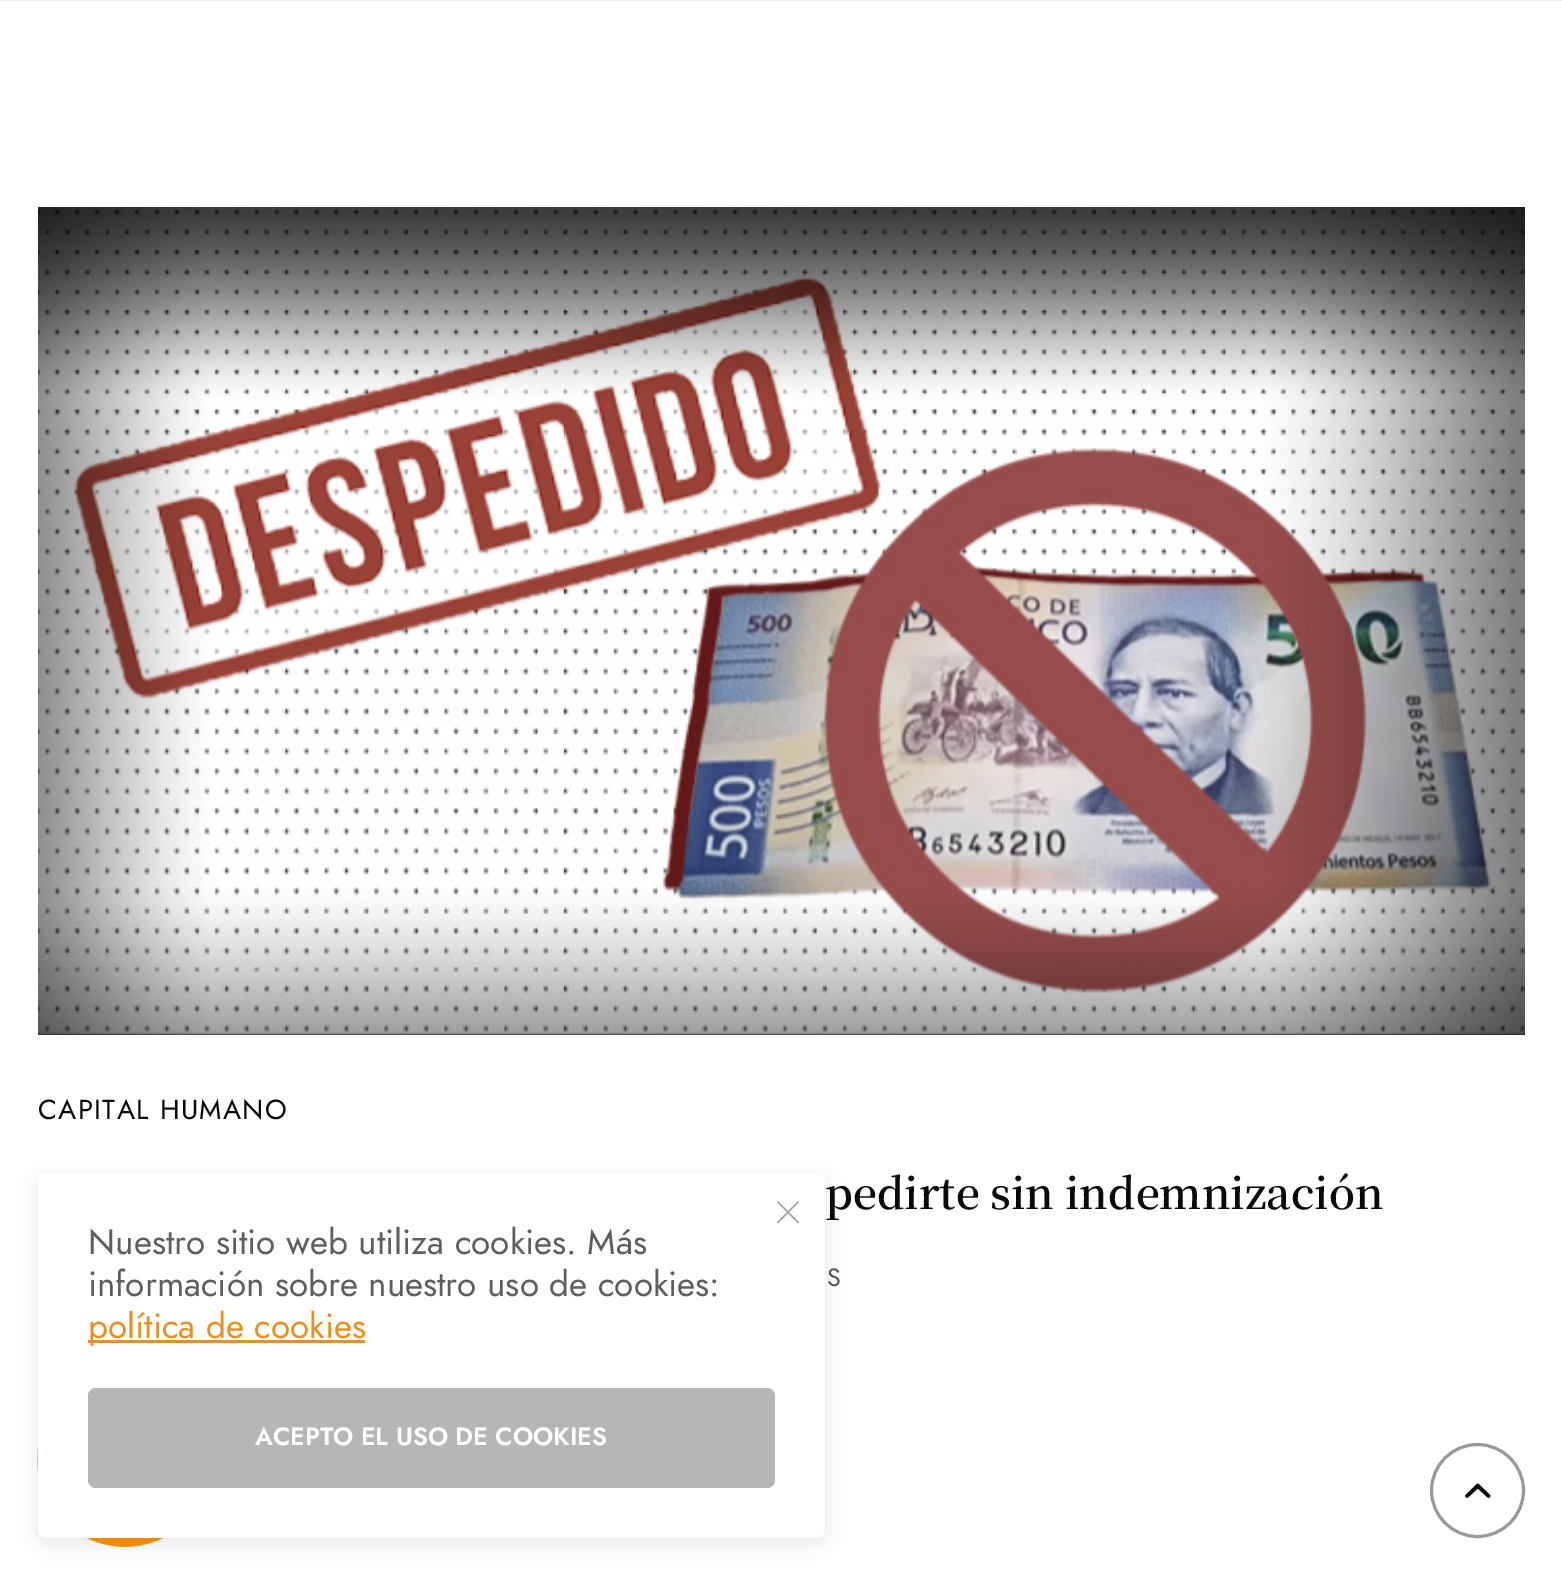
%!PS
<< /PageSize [1562 1575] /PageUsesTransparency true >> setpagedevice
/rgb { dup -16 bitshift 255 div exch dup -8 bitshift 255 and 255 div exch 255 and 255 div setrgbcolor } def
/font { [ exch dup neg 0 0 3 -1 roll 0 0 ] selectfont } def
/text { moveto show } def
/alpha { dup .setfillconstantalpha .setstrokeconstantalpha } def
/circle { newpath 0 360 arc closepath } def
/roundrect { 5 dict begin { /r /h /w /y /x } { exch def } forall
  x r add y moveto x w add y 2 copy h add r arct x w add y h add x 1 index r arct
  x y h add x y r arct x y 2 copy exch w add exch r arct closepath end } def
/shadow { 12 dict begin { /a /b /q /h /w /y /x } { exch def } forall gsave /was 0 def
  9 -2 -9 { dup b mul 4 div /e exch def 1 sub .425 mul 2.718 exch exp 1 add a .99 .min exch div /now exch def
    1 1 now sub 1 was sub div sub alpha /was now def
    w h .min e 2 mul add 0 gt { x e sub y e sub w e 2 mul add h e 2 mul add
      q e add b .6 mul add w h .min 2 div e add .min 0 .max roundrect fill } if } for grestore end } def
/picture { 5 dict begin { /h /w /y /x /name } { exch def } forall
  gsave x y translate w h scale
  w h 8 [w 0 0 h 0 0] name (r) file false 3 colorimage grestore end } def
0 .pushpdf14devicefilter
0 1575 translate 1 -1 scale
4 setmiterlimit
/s1 { /NotoSerifKR-SemiBold 42.5 font 16#0A0A0A rgb } def
/s2 { /Jost-Regular 35 font 16#5E5E5E rgb } def
/s3 { /Jost-Regular 35 font 16#E49024 rgb } def
/s4 { /Jost-SemiBold 25 font 16#FFFFFF rgb } def
16#FFFFFF rgb
0 0 1562 1575 rectfill
0.08 alpha
16#000000 rgb
0 0 1562 1 rectfill
1 alpha
16#0A0A0A rgb
38 1032 1487 3 rectfill
(pic1.raw) 38 207 1487 828 picture
/Jost-Regular 27.5 font
38 1119 moveto 1.4 0 (CAPITAL HUMANO) ashow
s1
(pedirte sin indemnización) 825 1209 text
/Jost-Regular 25 font
16#545454 rgb
827 1286 moveto 1 0 (S) ashow
(pic2.raw) 37 1447 127 100 picture
16#000000 rgb
38 1178 787 365 8 9 0.1 shadow
16#FFFFFF rgb
38 1173 787 365 8 roundrect fill
16#A3A3A3 rgb
778 1201 moveto 799 1222.5 lineto 798 1223.5 lineto 777 1202 lineto closepath fill
777 1222.5 moveto 798 1201 lineto 799 1202 lineto 778 1223.5 lineto closepath fill
s2
(Nuestro sitio web utiliza cookies. Más) 88 1254 text
(información sobre nuestro uso de cookies:) 88 1296 text
16#E49024 rgb
88 1340 277 3 rectfill
(política de cookies) 88 1338 text
16#B6B6B6 rgb
88 1388 687 100 8 roundrect fill
s4
(ACEPTO EL USO DE COOKIES) 255 1445 text
16#999999 rgb
3 setlinewidth
1477.5 1490.5 46 circle stroke
(pic3.raw) 1465 1483 26 15 picture
.poppdf14devicefilter showpage
